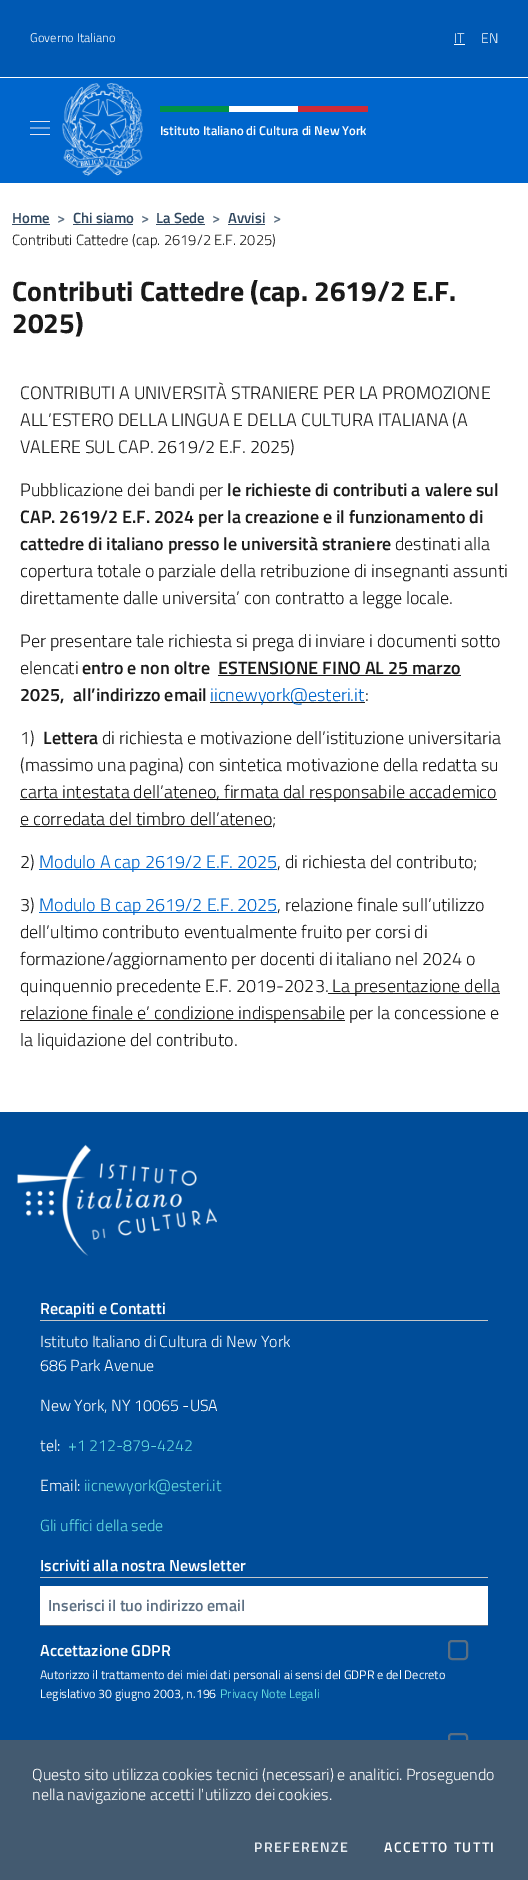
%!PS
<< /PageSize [528 1880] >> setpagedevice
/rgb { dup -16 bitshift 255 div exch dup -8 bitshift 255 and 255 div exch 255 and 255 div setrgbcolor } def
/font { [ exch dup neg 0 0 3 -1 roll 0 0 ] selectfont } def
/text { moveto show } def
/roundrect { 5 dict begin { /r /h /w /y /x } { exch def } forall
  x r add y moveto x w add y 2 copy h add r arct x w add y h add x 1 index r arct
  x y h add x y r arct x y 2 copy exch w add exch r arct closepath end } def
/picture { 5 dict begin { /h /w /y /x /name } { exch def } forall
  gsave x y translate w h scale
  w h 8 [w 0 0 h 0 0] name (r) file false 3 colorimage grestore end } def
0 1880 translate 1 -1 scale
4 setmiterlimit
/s1 { /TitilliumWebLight-Light 12.5 font 16#FFFFFF rgb } def
/s2 { /TitilliumWebLight-Light 14 font 16#FFFFFF rgb } def
/s3 { /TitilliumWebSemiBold-SemiBold 12.75 font 16#FFFFFF rgb } def
/s4 { /TitilliumWebSemiBold-SemiBold 14.75 font 16#30475F rgb } def
/s5 { /TitilliumWebSemiBold-SemiBold 14.75 font 16#5D7083 rgb } def
/s6 { /TitilliumWebLight-Light 14.75 font 16#1A1A1A rgb } def
/s7 { /TitilliumWeb-Bold 28 font 16#1A1A1A rgb } def
/s8 { /TitilliumWebLight-Light 18 font 16#1A1A1A rgb } def
/s9 { /TitilliumWebSemiBold-SemiBold 18 font 16#1A1A1A rgb } def
/s10 { /TitilliumWebLight-Light 18 font 16#0066CC rgb } def
/s11 { /TitilliumWebSemiBold-SemiBold 16 font 16#FFFFFF rgb } def
/s12 { /TitilliumWebLight-Light 16 font 16#FFFFFF rgb } def
/s13 { /TitilliumWebLight-Light 16 font 16#65DDE0 rgb } def
/s14 { /TitilliumWebSemiBold-SemiBold 16 font 16#5D7083 rgb } def
/s15 { /TitilliumWeb-Regular 12.4 font 16#FFFFFF rgb } def
/s16 { /TitilliumWeb-Regular 12.4 font 16#65DDE0 rgb } def
16#FFFFFF rgb
0 0 528 1880 rectfill
16#0059B3 rgb
0 0 528 77 rectfill
s1
(Governo Italiano) 30 42 text
s2
(IT) 454 43 text
454 44 11 1 rectfill
(EN) 481 43 text
16#0066CC rgb
0 78 528 105 rectfill
(pic1.raw) 30 121 20 14 picture
(pic2.raw) 62 83 81 93 picture
16#009246 rgb
160 106 69 6 rectfill
16#FFFFFF rgb
229 106 69 6 rectfill
16#CE2B37 rgb
298 106 70 6 rectfill
s3
(Istituto Italiano di Cultura di New York) 160 135 text
s4
(Home) 12 223 text
12 224 38 1 rectfill
s5
(>) 57 223 text
s4
(Chi siamo) 73 223 text
73 224 60 1 rectfill
s5
(>) 141 223 text
s4
(La Sede) 156 223 text
156 224 49 1 rectfill
s5
(>) 212 223 text
s4
(Avvisi) 228 223 text
228 224 37 1 rectfill
s5
(>) 273 223 text
s6
(Contributi Cattedre \(cap. 2619/2 E.F. 2025\)) 12 245 text
s7
(Contributi Cattedre \(cap. 2619/2 E.F.) 12 301 text
(2025\)) 12 333 text
s8
(CONTRIBUTI A UNIVERSITÀ STRANIERE PER LA PROMOZIONE) 20 399 text
(ALL’ESTERO DELLA LINGUA E DELLA CULTURA ITALIANA \(A) 20 426 text
(VALERE SUL CAP. 2619/2 E.F. 2025\)) 20 453 text
(Pubblicazione dei bandi per) 20 496 text
s9
(le richieste di contributi a valere sul) 227 496 text
(CAP. 2619/2 E.F. 2024 per la creazione e il funzionamento di) 20 523 text
(cattedre di italiano presso le università straniere) 20 550 text
s8
(destinati alla) 395 550 text
(copertura totale o parziale della retribuzione di insegnanti assunti) 20 577 text
(direttamente dalle universita’ con contratto a legge locale.) 20 604 text
(Per presentare tale richiesta si prega di inviare i documenti sotto) 20 647 text
(elencati) 20 674 text
s9
(entro e non oltre) 82 674 text
(ESTENSIONE FINO AL 25 marzo) 218 674 text
218 675 243 1 rectfill
(2025,) 20 701 text
(all’indirizzo email) 73 701 text
210 702 155 1 rectfill
s10
(iicnewyork@esteri.it) 210 701 text
s8
(:) 365 701 text
(1\)) 20 744 text
s9
(Lettera) 43 744 text
s8
(di richiesta e motivazione dell’istituzione universitaria) 102 744 text
(\(massimo una pagina\) con sintetica motivazione della redatta su) 20 771 text
20 799 477 1 rectfill
(carta intestata dell’ateneo, firmata dal responsabile accademico) 20 798 text
20 826 252 1 rectfill
(e corredata del timbro dell’ateneo;) 20 825 text
(2\)) 20 868 text
16#0066CC rgb
39 869 238 1 rectfill
(Modulo A cap 2619/2 E.F. 2025) 39 868 text
s8
(, di richiesta del contributo;) 277 868 text
(3\)) 20 911 text
16#0066CC rgb
39 912 238 1 rectfill
(Modulo B cap 2619/2 E.F. 2025) 39 911 text
s8
(, relazione finale sull’utilizzo) 277 911 text
(dell’ultimo contributo eventualmente fruito per corsi di) 20 938 text
(formazione/aggiornamento per docenti di italiano nel 2024 o) 20 965 text
(quinquennio precedente E.F. 2019-2023.) 20 992 text
328 993 172 1 rectfill
(La presentazione della) 332 992 text
20 1020 325 1 rectfill
(relazione finale e’ condizione indispensabile per la concessione e) 20 1019 text
(la liquidazione del contributo.) 20 1046 text
16#004D99 rgb
0 1112 528 628 rectfill
(pic3.raw) 17 1144 200 112 picture
16#C5C7C9 rgb
40 1320 448 1 rectfill
s11
(Recapiti e Contatti) 40 1314 text
s12
(Istituto Italiano di Cultura di New York) 40 1347 text
(686 Park Avenue) 40 1371 text
(New York, NY 10065 -USA) 40 1411 text
(tel:) 40 1451 text
s13
(+1 212-879-4242) 68 1451 text
s12
(Email:) 40 1491 text
s13
(iicnewyork@esteri.it) 84 1491 text
(Gli uffici della sede) 40 1531 text
16#C5C7C9 rgb
40 1577 448 1 rectfill
s11
(Iscriviti alla nostra Newsletter) 40 1571 text
40 1586 448 39 rectfill
16#5D7083 rgb
40 1625 448 1 rectfill
(Inserisci il tuo indirizzo email) 48 1611 text
s11
(Accettazione GDPR) 40 1656 text
16#5B6F82 rgb
2 setlinewidth
449 1641 18 18 3 roundrect stroke
s15
(Autorizzo il trattamento dei miei dati personali ai sensi del GDPR e del Decreto) 40 1679 text
(Legislativo 30 giugno 2003, n.196) 40 1698 text
s16
(Privacy Note Legali) 220 1698 text
16#5B6F82 rgb
449 1734 18 18 3 roundrect stroke
16#435A70 rgb
0 1740 528 140 rectfill
s12
(Questo sito utilizza cookies tecnici \(necessari\) e analitici. Proseguendo) 32 1780 text
(nella navigazione accetti l'utilizzo dei cookies.) 32 1800 text
/TitilliumWebSemiBold-SemiBold 14 font
16#E6ECF2 rgb
254 1852 moveto 1.4 0 (PREFERENZE) ashow
16#FFFFFF rgb
384 1852 moveto 1.4 0 (ACCETTO TUTTI) ashow
showpage
